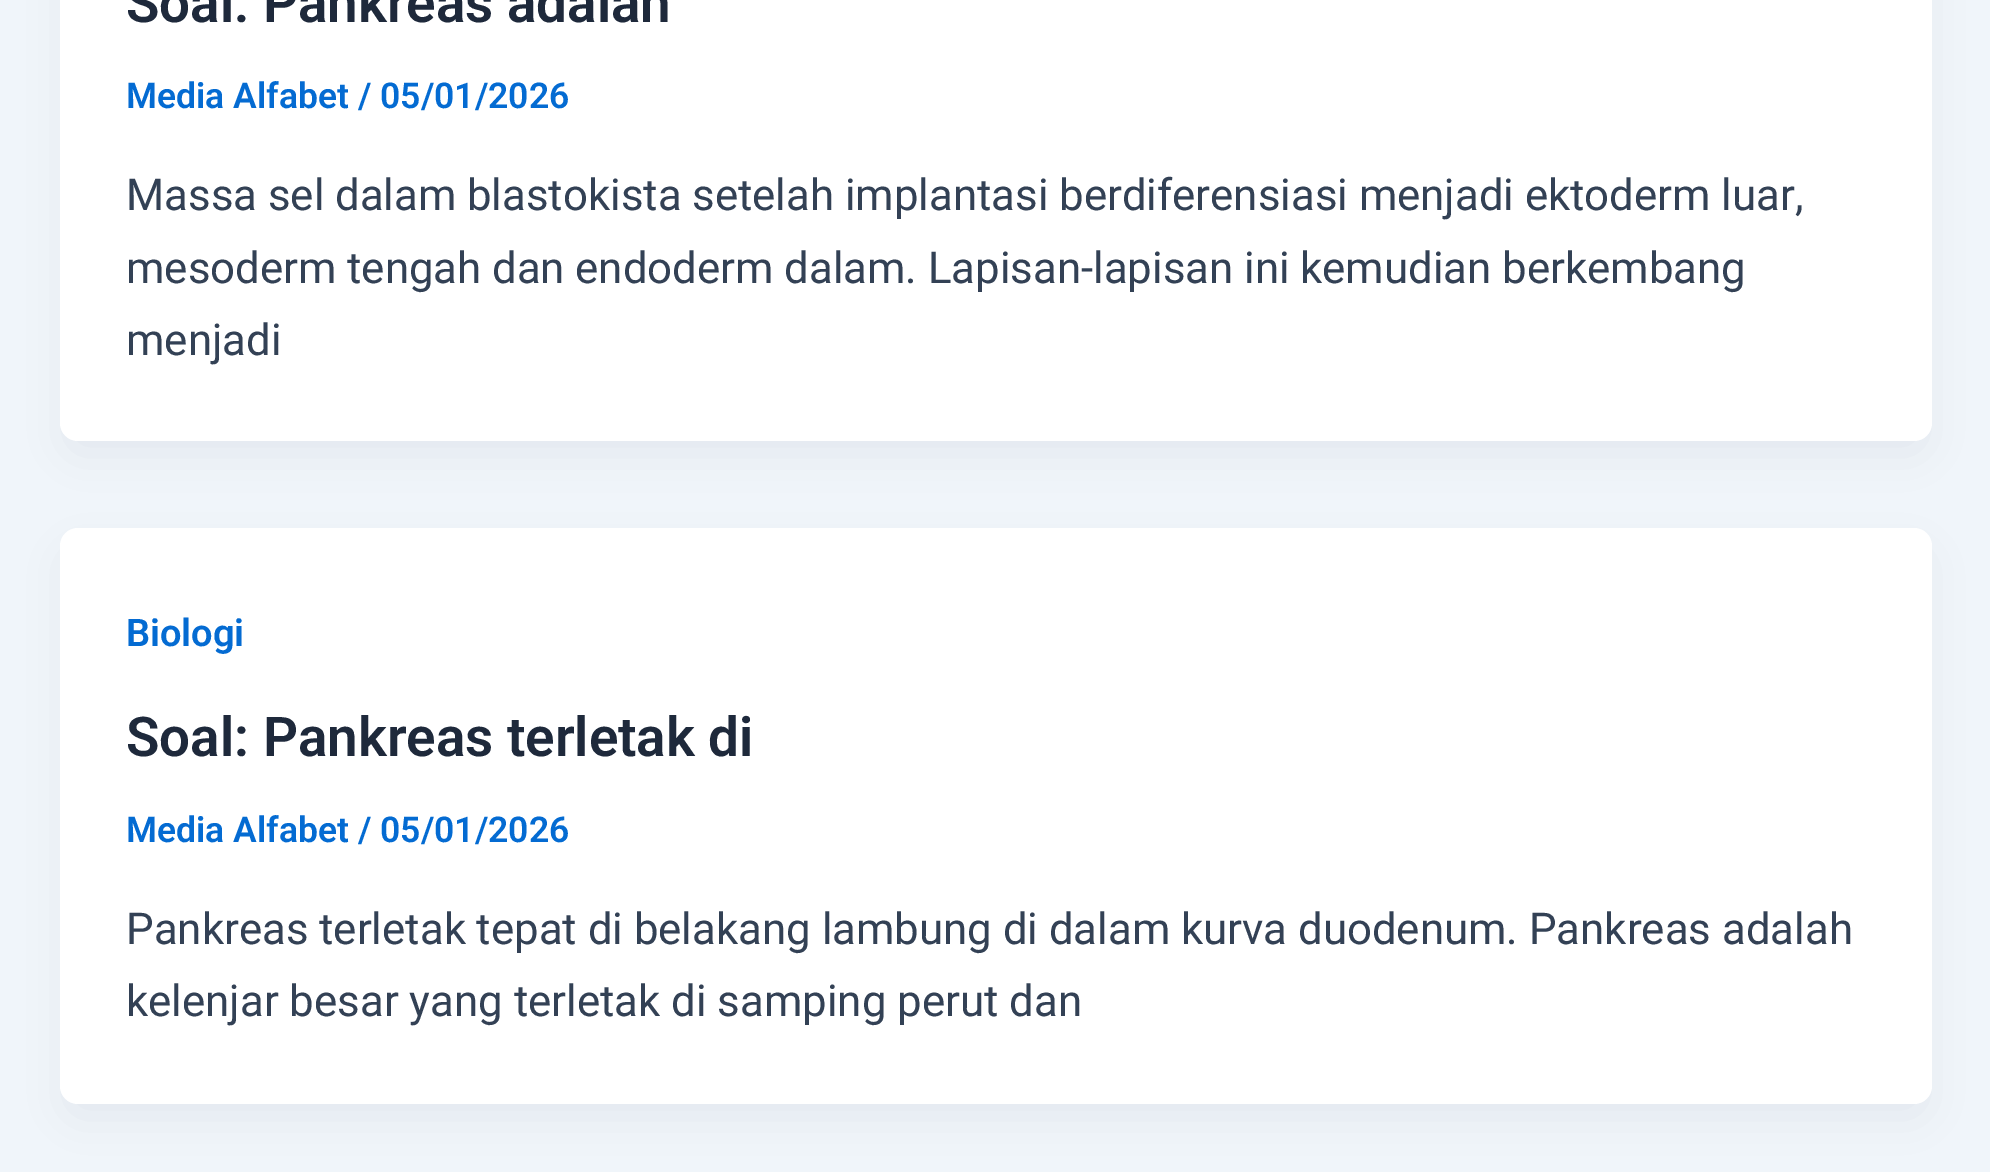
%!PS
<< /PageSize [1990 1172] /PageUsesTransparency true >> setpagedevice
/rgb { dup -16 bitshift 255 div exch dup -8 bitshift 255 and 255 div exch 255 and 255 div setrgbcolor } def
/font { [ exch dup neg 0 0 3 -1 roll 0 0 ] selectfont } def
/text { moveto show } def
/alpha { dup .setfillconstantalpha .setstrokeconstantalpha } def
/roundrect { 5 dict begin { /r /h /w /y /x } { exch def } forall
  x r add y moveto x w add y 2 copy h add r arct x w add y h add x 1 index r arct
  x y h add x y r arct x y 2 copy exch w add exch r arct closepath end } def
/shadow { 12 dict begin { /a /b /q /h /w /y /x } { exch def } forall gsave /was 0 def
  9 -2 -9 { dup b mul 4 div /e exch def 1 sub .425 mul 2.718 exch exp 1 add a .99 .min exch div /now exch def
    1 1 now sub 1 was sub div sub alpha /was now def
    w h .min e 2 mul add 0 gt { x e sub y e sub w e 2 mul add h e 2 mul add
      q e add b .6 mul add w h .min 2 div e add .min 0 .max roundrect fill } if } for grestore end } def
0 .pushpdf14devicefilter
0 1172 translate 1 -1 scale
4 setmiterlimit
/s1 { /Roboto-SemiBold 54.75 font 16#1E293B rgb } def
/s2 { /Roboto-SemiBold 35.5 font 16#046BD2 rgb } def
/s3 { /Roboto-Regular 43.8 font 16#334155 rgb } def
/s4 { /Roboto-SemiBold 38 font 16#046BD2 rgb } def
16#F0F5FA rgb
0 0 1990 1172 rectfill
16#101828 rgb
66 -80 1860 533 12 22.5 0.05 shadow
16#FFFFFF rgb
60 -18 1872 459 18 roundrect fill
s1
(Soal: Pankreas adalah) 126 22 text
s2
(Media Alfabet / 05/01/2026) 126 108 text
/Roboto-Regular 43.8 font
16#334155 rgb
126 210 moveto -0.25 0 32 (Massa sel dalam blastokista setelah implantasi berdiferensiasi menjadi ektoderm luar,) widthshow
126 283 moveto -0.25 0 32 (mesoderm tengah dan endoderm dalam. Lapisan-lapisan ini kemudian berkembang) widthshow
(menjadi) 126 355 text
16#101828 rgb
66 552 1860 564 12 22.5 0.05 shadow
16#FFFFFF rgb
60 528 1872 576 18 roundrect fill
s4
(Biologi) 126 646 text
s1
(Soal: Pankreas terletak di) 126 756 text
s2
(Media Alfabet / 05/01/2026) 126 842 text
/Roboto-Regular 43.8 font
16#334155 rgb
126 944 moveto -0.1 0 32 (Pankreas terletak tepat di belakang lambung di dalam kurva duodenum. Pankreas adalah) widthshow
(kelenjar besar yang terletak di samping perut dan) 126 1016 text
.poppdf14devicefilter showpage
